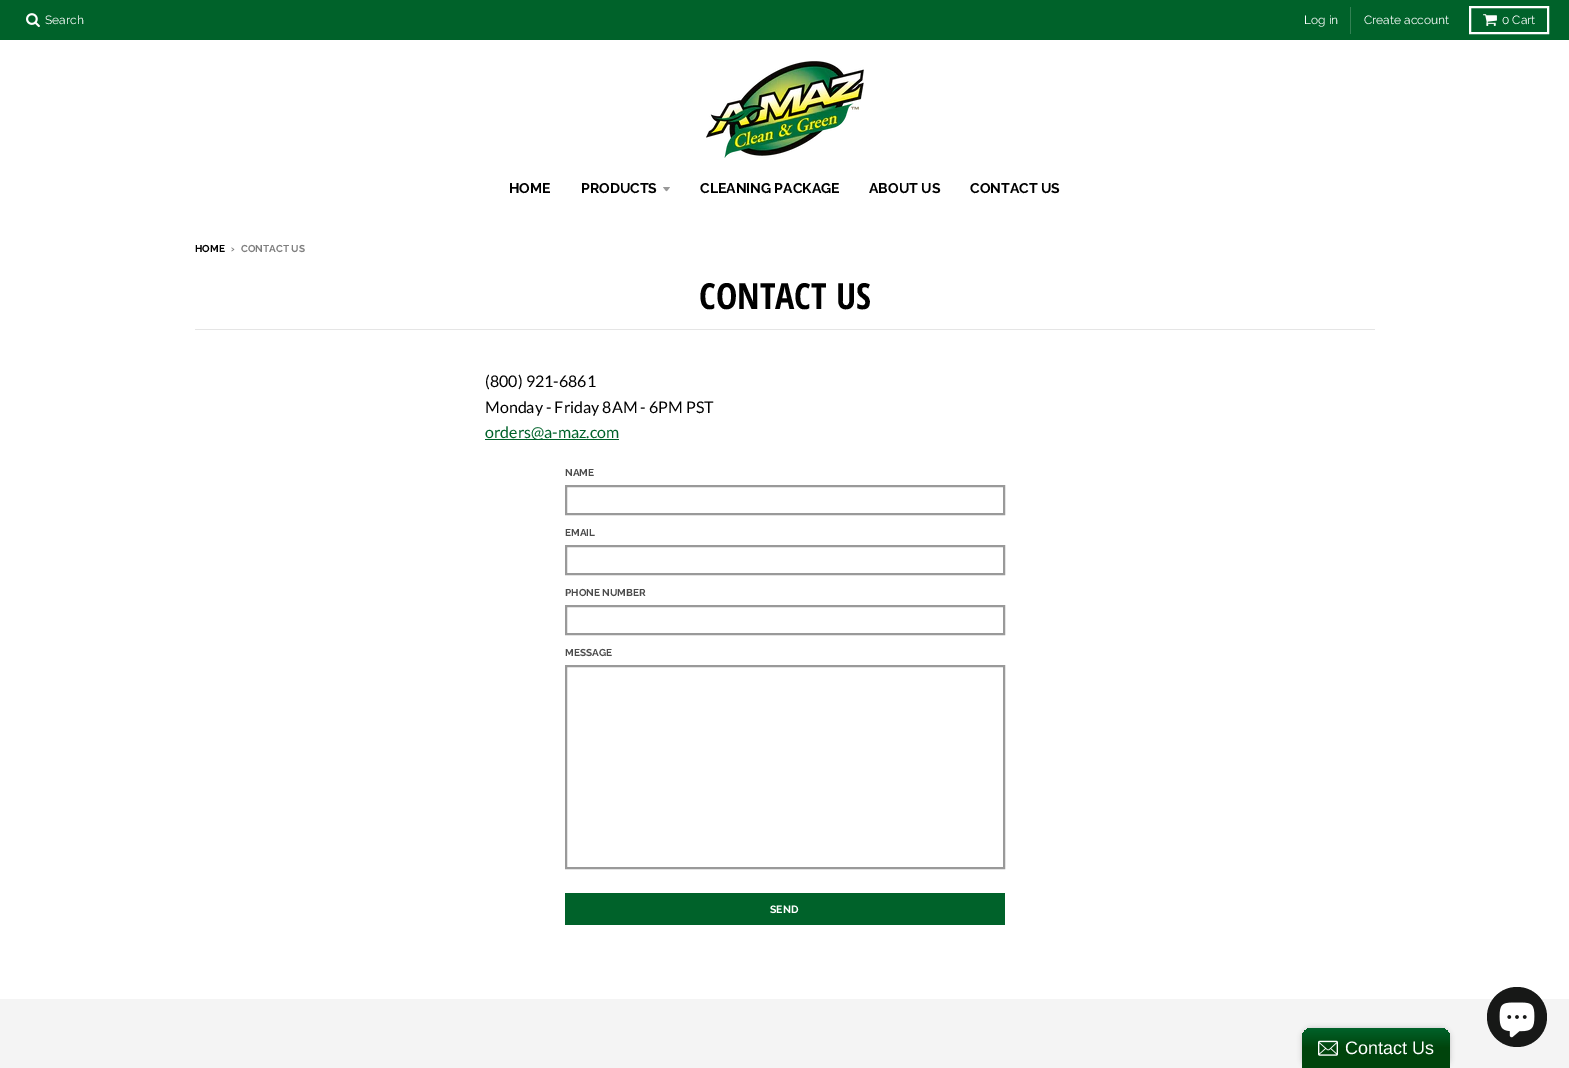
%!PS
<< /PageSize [1569 1068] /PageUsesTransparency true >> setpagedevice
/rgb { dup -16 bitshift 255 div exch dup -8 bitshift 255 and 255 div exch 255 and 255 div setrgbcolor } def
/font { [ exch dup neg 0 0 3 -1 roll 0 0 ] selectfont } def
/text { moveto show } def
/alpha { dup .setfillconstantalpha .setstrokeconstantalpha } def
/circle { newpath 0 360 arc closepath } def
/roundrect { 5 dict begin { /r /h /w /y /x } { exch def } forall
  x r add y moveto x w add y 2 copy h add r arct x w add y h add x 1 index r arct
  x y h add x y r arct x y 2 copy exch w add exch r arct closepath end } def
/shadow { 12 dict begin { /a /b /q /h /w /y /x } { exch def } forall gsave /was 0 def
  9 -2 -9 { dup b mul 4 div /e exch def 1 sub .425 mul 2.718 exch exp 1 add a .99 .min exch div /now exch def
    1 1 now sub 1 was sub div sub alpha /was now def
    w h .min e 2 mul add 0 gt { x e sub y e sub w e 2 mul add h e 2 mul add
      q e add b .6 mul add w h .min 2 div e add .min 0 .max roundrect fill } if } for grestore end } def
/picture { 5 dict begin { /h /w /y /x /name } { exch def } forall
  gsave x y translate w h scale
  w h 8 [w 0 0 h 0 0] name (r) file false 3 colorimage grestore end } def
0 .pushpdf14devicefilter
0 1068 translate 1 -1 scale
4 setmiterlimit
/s1 { /Raleway-Regular 12 font 16#FFFFFF rgb } def
/s2 { /Raleway-Bold 14 font 16#000000 rgb } def
/s3 { /Raleway-Bold 10 font 16#000000 rgb } def
/s4 { /Raleway-Bold 10 font 16#7F7F7F rgb } def
/s5 { /OpenSansCondensed-Bold 36 font 16#000000 rgb } def
/s6 { /Lato-Regular 16 font 16#000000 rgb } def
/s7 { /Lato-Regular 16 font 16#00622A rgb } def
/s8 { /Raleway-Bold 10 font 16#4C4C4C rgb } def
/s9 { /Raleway-Bold 10.5 font 16#FFFFFF rgb } def
/s10 { /LiberationSans-Regular 18 font 16#FFFFFF rgb } def
16#FFFFFF rgb
0 0 1569 1068 rectfill
16#00622A rgb
0 0 1569 40 rectfill
(pic1.raw) 26 13 14 15 picture
s1
(Search) 45 24 text
16#338154 rgb
1350 7 1 27 rectfill
s1
(Log in) 1304 24 text
(Create account) 1364 24 text
2 setlinewidth
1470 7 78 26 rectstroke
(pic2.raw) 1483 14 14 12 picture
(0 Cart) 1502 24 text
(pic3.raw) 706 61 158 97 picture
s2
(HOME) 509 193 text
(PRODUCTS) 581 193 text
16#999999 rgb
663 187 moveto 667.5 192.5 665.5 192.5 670 187 curveto closepath fill
s2
(CLEANING PACKAGE) 700 193 text
(ABOUT US) 869 193 text
(CONTACT US) 970 193 text
s3
(HOME) 195 252 text
s4
(›) 231 252 text
(CONTACT US) 241 252 text
16#E5E5E5 rgb
195 329 1180 1 rectfill
s5
(CONTACT US) 699 309 text
s6
(\(800\) 921-6861) 485 387 text
(Monday - Friday 8AM - 6PM PST) 485 413 text
16#00622A rgb
485 439 134 1 rectfill
(orders@a-maz.com) 485 438 text
s8
(NAME) 565 476 text
16#999999 rgb
566 486 438 28 rectstroke
s8
(EMAIL) 565 536 text
16#999999 rgb
566 546 438 28 rectstroke
s8
(PHONE NUMBER) 565 596 text
16#999999 rgb
566 606 438 28 rectstroke
s8
(MESSAGE) 565 656 text
16#999999 rgb
566 666 438 202 rectstroke
16#00622A rgb
565 893 440 32 rectfill
s9
(SEND) 770 913 text
16#F4F4F4 rgb
0 999 1569 69 rectfill
16#000000 rgb
1302 1028 148 40 10 2.5 0.2 shadow
gsave 1312 1028 moveto 1440 1028 lineto 1445.5 1028 1450 1032.5 1450 1038 curveto 1450 1068 lineto 1302 1068 lineto 1302 1038 lineto 1302 1032.5 1306.5 1028 1312 1028 curveto closepath clip newpath
<< /ShadingType 2 /ColorSpace /DeviceRGB /Coords [1376 1028 1376 1068] /Extend [true true] /Function << /FunctionType 3 /Domain [0 1] /Functions [<< /FunctionType 2 /Domain [0 1] /C0 [0 0.384 0.165] /C1 [0 0.267 0.047] /N 1 >> << /FunctionType 2 /Domain [0 1] /C0 [0 0.267 0.047] /C1 [0 0.267 0.047] /N 1 >>] /Bounds [0.5] /Encode [0 1 0 1] >> >> shfill grestore
(pic4.raw) 1318 1040 20 16 picture
s10
(Contact Us) 1345 1054 text
16#171817 rgb
1517 1017 30 circle fill
(pic5.raw) 1499 1002 36 36 picture
.poppdf14devicefilter showpage
